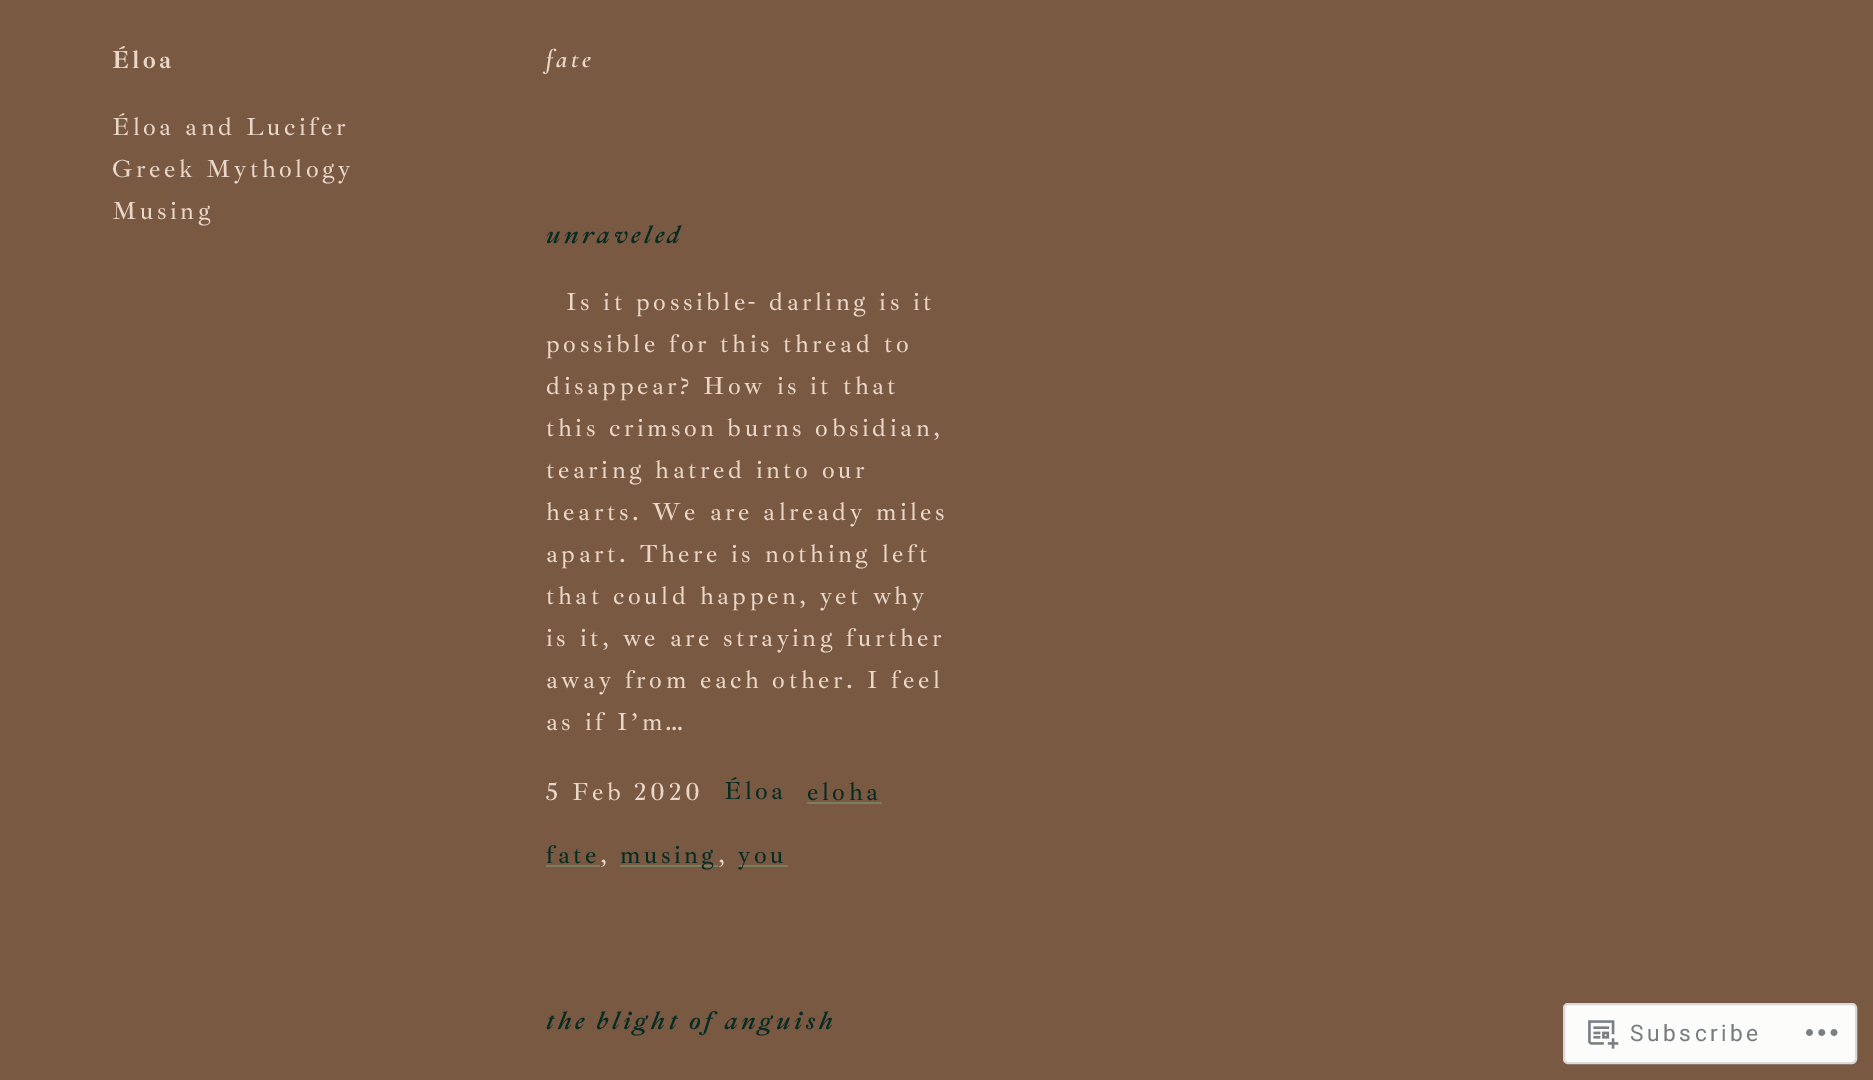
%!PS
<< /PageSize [1873 1080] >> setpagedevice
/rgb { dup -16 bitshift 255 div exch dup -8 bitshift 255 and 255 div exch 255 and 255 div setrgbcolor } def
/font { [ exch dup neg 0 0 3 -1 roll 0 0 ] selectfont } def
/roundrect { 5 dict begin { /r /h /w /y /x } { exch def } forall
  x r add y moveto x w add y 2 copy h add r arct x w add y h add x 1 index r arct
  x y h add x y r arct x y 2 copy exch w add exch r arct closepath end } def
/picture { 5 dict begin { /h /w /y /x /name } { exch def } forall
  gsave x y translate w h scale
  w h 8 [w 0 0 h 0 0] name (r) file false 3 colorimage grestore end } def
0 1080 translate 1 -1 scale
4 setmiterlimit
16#7A5943 rgb
0 0 1873 1080 rectfill
/IbarraRealNova-Bold 25.25 font
16#E9D7C9 rgb
112 68 moveto 3.5 0 (Éloa) ashow
/IbarraRealNova-Medium 25.25 font
112 135 moveto 3.5 0 (Éloa and Lucifer) ashow
112 177 moveto 3.5 0 (Greek Mythology) ashow
112 219 moveto 3.5 0 (Musing) ashow
/Cormorant-BoldItalic 25.25 font
546 67 moveto 3.5 0 (fate) ashow
/IbarraRealNova-BoldItalic 25.25 font
16#062B23 rgb
546 243 moveto 3.5 0 (unraveled) ashow
/IbarraRealNova-Medium 25.25 font
16#E9D7C9 rgb
566 310 moveto 3.5 0 (Is it possible- darling is it) ashow
546 352 moveto 3.5 0 (possible for this thread to) ashow
546 394 moveto 3.5 0 (disappear? How is it that) ashow
546 436 moveto 3.5 0 (this crimson burns obsidian,) ashow
546 478 moveto 3.5 0 (tearing hatred into our) ashow
546 520 moveto 3.5 0 (hearts. We are already miles) ashow
546 562 moveto 3.5 0 (apart. There is nothing left) ashow
546 604 moveto 3.5 0 (that could happen, yet why) ashow
546 646 moveto 3.5 0 (is it, we are straying further) ashow
546 688 moveto 3.5 0 (away from each other. I feel) ashow
546 730 moveto 3.5 0 (as if I’m…) ashow
546 800 moveto 3.5 0 (5 Feb 2020) ashow
16#062B23 rgb
724 799 moveto 3.5 0 (Éloa) ashow
807 800 moveto 3.5 0 (eloha) ashow
16#7A7E5F rgb
807 802 75 2 rectfill
16#062B23 rgb
546 863 moveto 3.5 0 (fate) ashow
16#7A7E5F rgb
546 865 54 2 rectfill
16#E9D7C9 rgb
600 863 moveto 3.5 0 (,) ashow
16#7A7E5F rgb
620 865 98 2 rectfill
16#062B23 rgb
620 863 moveto 3.5 0 (musing) ashow
16#E9D7C9 rgb
718 863 moveto 3.5 0 (,) ashow
16#7A7E5F rgb
739 865 49 2 rectfill
16#062B23 rgb
738 863 moveto 3.5 0 (you) ashow
/IbarraRealNova-BoldItalic 25.25 font
546 1029 moveto 3.5 0 (the blight of anguish) ashow
16#FCFCFB rgb
1564 1004 292 59 4 roundrect gsave fill grestore
16#DAD9DB rgb
2 setlinewidth
stroke
(pic1.raw) 1588 1020 31 29 picture
/Roboto-Regular 22.75 font
16#787B81 rgb
1630 1041 moveto 3.5 0 (Subscribe) ashow
(pic2.raw) 1806 1029 32 7 picture
showpage
